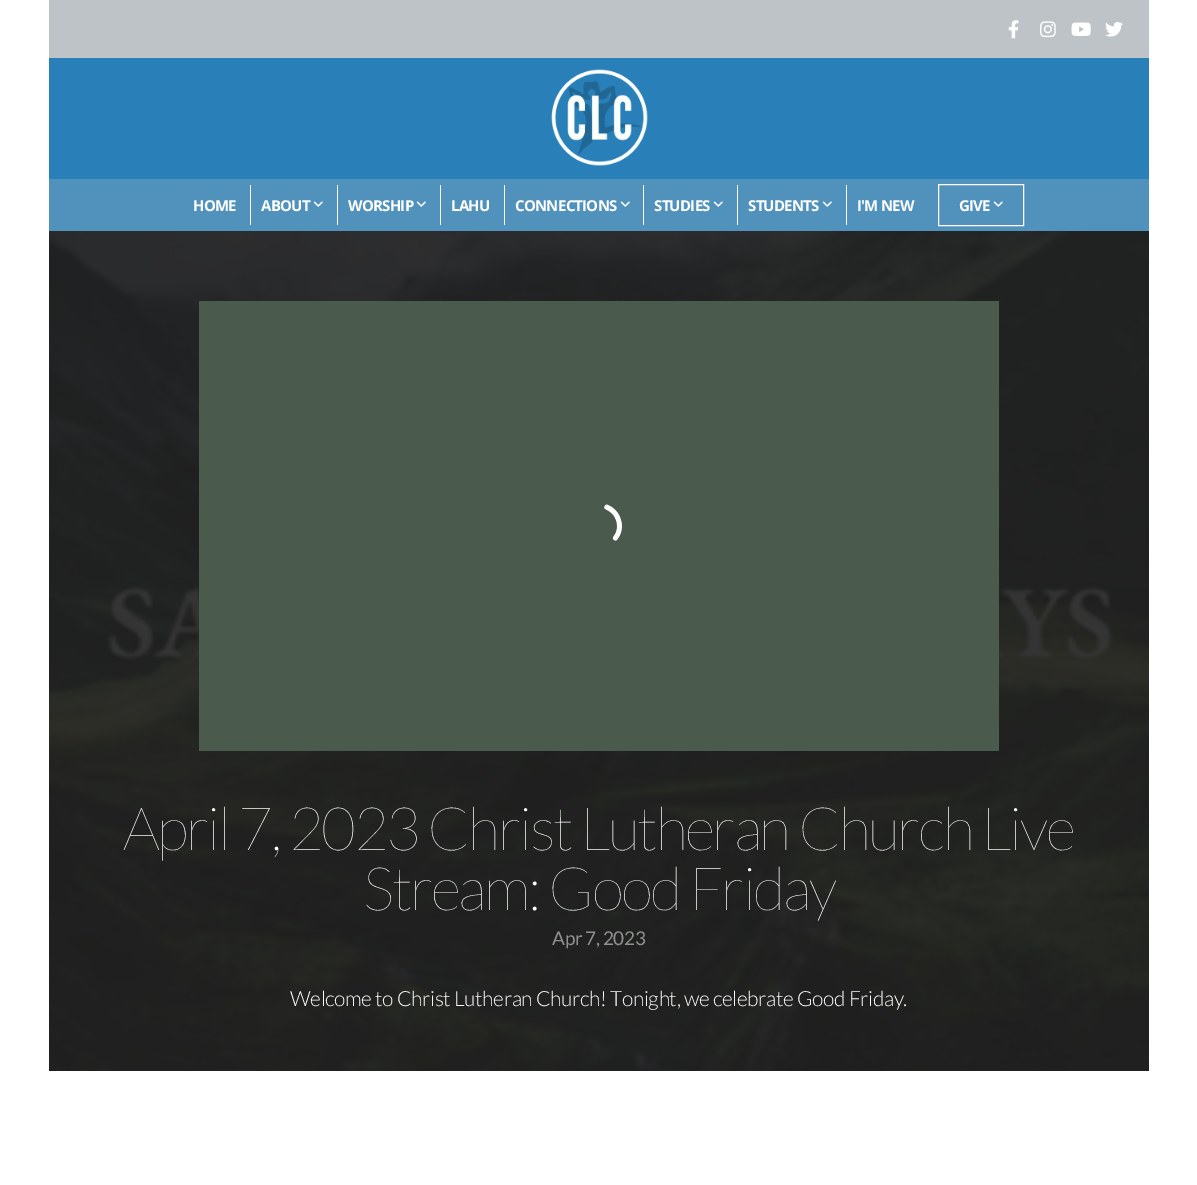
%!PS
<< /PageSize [1197 1185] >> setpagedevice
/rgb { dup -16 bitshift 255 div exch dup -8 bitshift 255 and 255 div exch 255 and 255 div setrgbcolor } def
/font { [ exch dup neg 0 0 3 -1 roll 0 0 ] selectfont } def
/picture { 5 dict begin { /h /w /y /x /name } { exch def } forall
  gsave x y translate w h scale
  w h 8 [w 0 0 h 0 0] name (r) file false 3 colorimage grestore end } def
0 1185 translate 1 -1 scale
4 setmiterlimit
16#FFFFFF rgb
0 0 1197 1185 rectfill
16#2980B9 rgb
49 58 1100 121 rectfill
16#BDC3C7 rgb
49 0 1100 58 rectfill
(pic1.raw) 1008 20 11 19 picture
(pic2.raw) 1040 21 16 17 picture
(pic3.raw) 1071 22 20 14 picture
(pic4.raw) 1105 22 18 15 picture
(pic5.raw) 551 69 97 97 picture
16#5192BD rgb
49 179 1100 52 rectfill
/OpenSans-Bold 15 font
16#FFFFFF rgb
193 211 moveto -0.75 0 (HOME) ashow
250 185 1 40 rectfill
261 211 moveto -0.75 0 (ABOUT) ashow
(pic6.raw) 313 201 10 6 picture
337 185 1 40 rectfill
348 211 moveto -0.75 0 (WORSHIP) ashow
(pic6.raw) 416 201 10 6 picture
440 185 1 40 rectfill
451 211 moveto -0.75 0 (LAHU) ashow
504 185 1 40 rectfill
515 211 moveto -0.75 0 (CONNECTIONS) ashow
(pic6.raw) 620 201 10 6 picture
643 185 1 40 rectfill
654 211 moveto -0.75 0 (STUDIES) ashow
(pic6.raw) 713 201 10 6 picture
737 185 1 40 rectfill
748 211 moveto -0.75 0 (STUDENTS) ashow
(pic6.raw) 822 201 10 6 picture
846 185 1 40 rectfill
857 211 moveto -0.75 0 (I'M NEW) ashow
938.5 184.5 85 41 rectstroke
959 211 moveto -0.75 0 (GIVE) ashow
(pic6.raw) 993 201 10 6 picture
(pic7.raw) 49 231 1100 840 picture
(pic8.raw) 199 301 800 450 picture
/Lato-Thin 60 font
123 850 moveto -2.4 0 (April 7, 2023 Christ Lutheran Church Live) ashow
363 910 moveto -2.4 0 (Stream: Good Friday) ashow
/Lato-Regular 19 font
16#8F908F rgb
552 945 moveto -0.38 0 (Apr 7, 2023) ashow
/Lato-Light 20.9 font
16#FFFFFF rgb
290 1006 moveto -0.38 0 (Welcome to Christ Lutheran Church! Tonight, we celebrate Good Friday.) ashow
showpage
